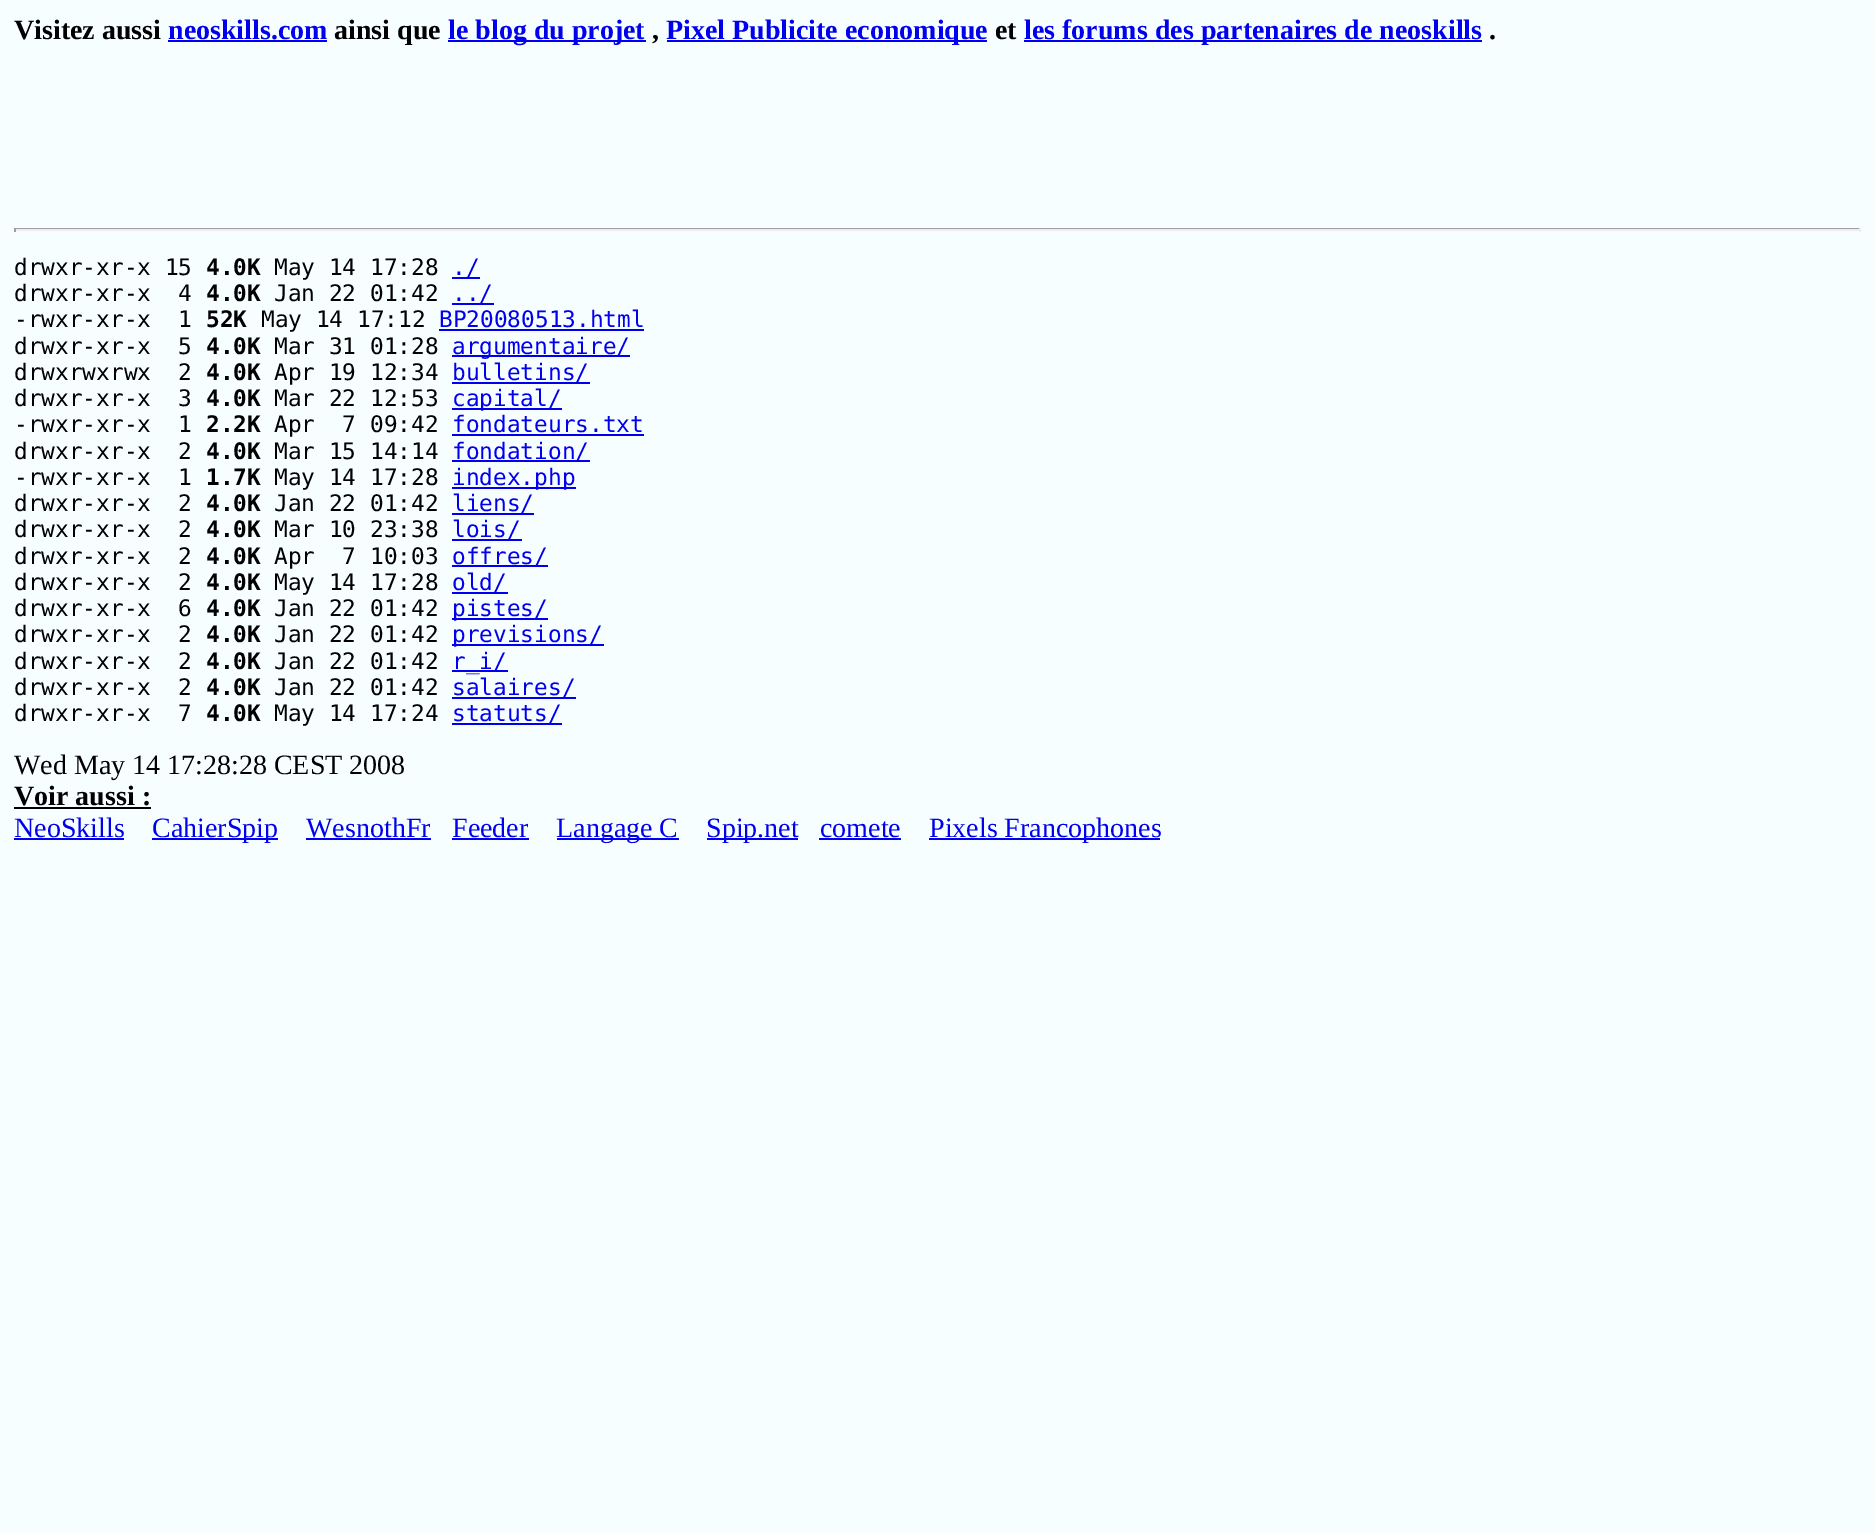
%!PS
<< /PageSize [1874 1534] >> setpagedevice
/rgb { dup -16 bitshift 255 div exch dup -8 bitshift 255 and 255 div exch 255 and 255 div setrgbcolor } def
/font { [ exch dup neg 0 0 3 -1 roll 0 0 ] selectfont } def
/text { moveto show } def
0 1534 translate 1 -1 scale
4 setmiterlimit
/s1 { /LiberationSerif-Bold 28 font 16#000000 rgb } def
/s2 { /LiberationSerif-Bold 28 font 16#0000EE rgb } def
/s3 { /DejaVuSansMono-Regular 22.75 font 16#000000 rgb } def
/s4 { /DejaVuSansMono-Bold 22.75 font 16#000000 rgb } def
/s5 { /DejaVuSansMono-Regular 22.75 font 16#0000EE rgb } def
/s6 { /LiberationSerif-Regular 28 font 16#000000 rgb } def
/s7 { /LiberationSerif-Regular 28 font 16#0000EE rgb } def
16#F6FEFF rgb
0 0 1874 1534 rectfill
s1
(Visitez aussi) 14 39 text
s2
(neoskills.com) 168 39 text
168 40 159 2 rectfill
s1
(ainsi que) 334 39 text
16#0000EE rgb
448 40 198 2 rectfill
(le blog du projet) 448 39 text
s1
(,) 652 39 text
16#0000EE rgb
667 40 320 2 rectfill
(Pixel Publicite economique) 666 39 text
s1
(et) 995 39 text
16#0000EE rgb
1024 40 458 2 rectfill
(les forums des partenaires de neoskills) 1024 39 text
s1
(.) 1489 39 text
16#9F9F9F rgb
14 228 1846 1 rectfill
16#EEEEEE rgb
1859 228 2 4 rectfill
14 229 1846 2 rectfill
16#9F9F9F rgb
14 228 2 4 rectfill
s3
(drwxr-xr-x 15) 14 275 text
s4
(4.0K) 206 275 text
s3
(May 14 17:28) 274 275 text
16#0000EE rgb
452 277 28 2 rectfill
(./) 452 275 text
s3
(drwxr-xr-x  4) 14 301 text
s4
(4.0K) 206 301 text
s3
(Jan 22 01:42) 274 301 text
16#0000EE rgb
452 303 42 2 rectfill
(../) 452 301 text
s3
(-rwxr-xr-x  1) 14 327 text
s4
(52K) 206 327 text
s3
(May 14 17:12) 261 327 text
s5
(BP20080513.html) 439 327 text
439 329 205 2 rectfill
s3
(drwxr-xr-x  5) 14 354 text
s4
(4.0K) 206 354 text
s3
(Mar 31 01:28) 274 354 text
16#0000EE rgb
452 355 178 2 rectfill
(argumentaire/) 452 354 text
s3
(drwxrwxrwx  2) 14 380 text
s4
(4.0K) 206 380 text
s3
(Apr 19 12:34) 274 380 text
16#0000EE rgb
452 382 138 2 rectfill
(bulletins/) 452 380 text
s3
(drwxr-xr-x  3) 14 406 text
s4
(4.0K) 206 406 text
s3
(Mar 22 12:53) 274 406 text
16#0000EE rgb
452 408 110 2 rectfill
(capital/) 452 406 text
s3
(-rwxr-xr-x  1) 14 432 text
s4
(2.2K) 206 432 text
s3
(Apr  7 09:42) 274 432 text
s5
(fondateurs.txt) 452 432 text
452 434 192 2 rectfill
s3
(drwxr-xr-x  2) 14 459 text
s4
(4.0K) 206 459 text
s3
(Mar 15 14:14) 274 459 text
16#0000EE rgb
452 460 138 2 rectfill
(fondation/) 452 459 text
s3
(-rwxr-xr-x  1) 14 485 text
s4
(1.7K) 206 485 text
s3
(May 14 17:28) 274 485 text
16#0000EE rgb
452 487 124 2 rectfill
(index.php) 452 485 text
s3
(drwxr-xr-x  2) 14 511 text
s4
(4.0K) 206 511 text
s3
(Jan 22 01:42) 274 511 text
16#0000EE rgb
452 513 82 2 rectfill
(liens/) 452 511 text
s3
(drwxr-xr-x  2) 14 537 text
s4
(4.0K) 206 537 text
s3
(Mar 10 23:38) 274 537 text
16#0000EE rgb
452 539 70 2 rectfill
(lois/) 452 537 text
s3
(drwxr-xr-x  2) 14 564 text
s4
(4.0K) 206 564 text
s3
(Apr  7 10:03) 274 564 text
16#0000EE rgb
452 565 96 2 rectfill
(offres/) 452 564 text
s3
(drwxr-xr-x  2) 14 590 text
s4
(4.0K) 206 590 text
s3
(May 14 17:28) 274 590 text
16#0000EE rgb
452 592 56 2 rectfill
(old/) 452 590 text
s3
(drwxr-xr-x  6) 14 616 text
s4
(4.0K) 206 616 text
s3
(Jan 22 01:42) 274 616 text
16#0000EE rgb
452 618 96 2 rectfill
(pistes/) 452 616 text
s3
(drwxr-xr-x  2) 14 642 text
s4
(4.0K) 206 642 text
s3
(Jan 22 01:42) 274 642 text
16#0000EE rgb
452 644 152 2 rectfill
(previsions/) 452 642 text
s3
(drwxr-xr-x  2) 14 669 text
s4
(4.0K) 206 669 text
s3
(Jan 22 01:42) 274 669 text
16#0000EE rgb
452 670 56 2 rectfill
(r_i/) 452 669 text
s3
(drwxr-xr-x  2) 14 695 text
s4
(4.0K) 206 695 text
s3
(Jan 22 01:42) 274 695 text
16#0000EE rgb
452 697 124 2 rectfill
(salaires/) 452 695 text
s3
(drwxr-xr-x  7) 14 721 text
s4
(4.0K) 206 721 text
s3
(May 14 17:24) 274 721 text
16#0000EE rgb
452 723 110 2 rectfill
(statuts/) 452 721 text
s6
(Wed May 14 17:28:28 CEST 2008) 14 774 text
s1
(Voir aussi :) 14 805 text
14 807 137 2 rectfill
s7
(NeoSkills) 14 837 text
14 838 110 2 rectfill
152 838 126 2 rectfill
(CahierSpip) 152 837 text
(WesnothFr) 306 837 text
306 838 125 2 rectfill
(Feeder) 452 837 text
452 838 77 2 rectfill
557 838 122 2 rectfill
(Langage C) 556 837 text
707 838 91 2 rectfill
(Spip.net) 706 837 text
(comete) 820 837 text
819 838 82 2 rectfill
929 838 231 2 rectfill
(Pixels Francophones) 929 837 text
showpage
